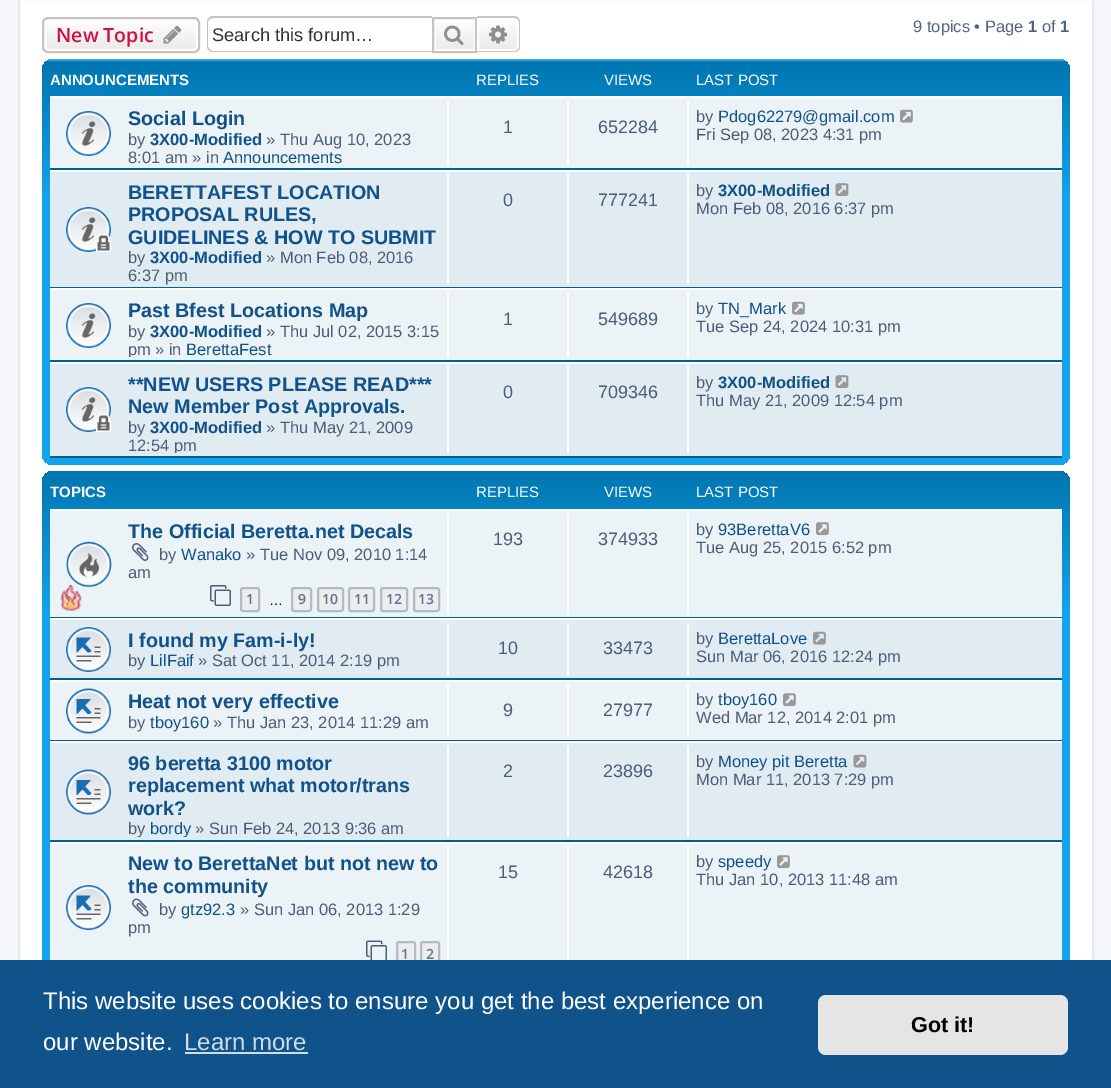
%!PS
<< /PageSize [1111 1088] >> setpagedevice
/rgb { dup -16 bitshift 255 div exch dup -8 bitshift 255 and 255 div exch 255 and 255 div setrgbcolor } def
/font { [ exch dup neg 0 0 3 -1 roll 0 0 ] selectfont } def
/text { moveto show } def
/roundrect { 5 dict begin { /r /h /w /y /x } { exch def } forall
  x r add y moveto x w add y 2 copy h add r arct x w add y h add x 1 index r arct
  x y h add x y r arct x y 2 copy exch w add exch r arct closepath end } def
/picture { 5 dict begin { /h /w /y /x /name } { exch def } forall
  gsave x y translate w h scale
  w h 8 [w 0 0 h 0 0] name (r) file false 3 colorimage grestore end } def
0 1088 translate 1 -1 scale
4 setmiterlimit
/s1 { /OpenSans-SemiBold 19.5 font 16#D31141 rgb } def
/s2 { /LiberationSans-Regular 18.25 font 16#333333 rgb } def
/s3 { /LiberationSans-Regular 16.5 font 16#536482 rgb } def
/s4 { /LiberationSans-Bold 16.5 font 16#536482 rgb } def
/s5 { /LiberationSans-Bold 15 font 16#FFFFFF rgb } def
/s6 { /LiberationSans-Regular 15 font 16#FFFFFF rgb } def
/s7 { /LiberationSans-Bold 19.75 font 16#105289 rgb } def
/s8 { /LiberationSans-Regular 16.5 font 16#4C5D77 rgb } def
/s9 { /LiberationSans-Bold 16.5 font 16#105289 rgb } def
/s10 { /LiberationSans-Regular 16.5 font 16#105289 rgb } def
/s11 { /LiberationSans-Regular 18 font 16#4C5D77 rgb } def
/s12 { /OpenSans-SemiBold 14 font 16#5C758C rgb } def
/s13 { /LiberationSans-Regular 14 font 16#000000 rgb } def
/s14 { /LiberationSans-Regular 24 font 16#FFFFFF rgb } def
/s15 { /LiberationSans-Regular 24 font 16#CFDDE8 rgb } def
/s16 { /LiberationSans-Bold 21.5 font 16#000000 rgb } def
16#F5F7FA rgb
0 0 1111 1088 rectfill
16#FFFFFF rgb
20 0 1072 960 rectfill
16#E6E9ED rgb
2 setlinewidth
19 -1 1074 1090 rectstroke
gsave
42 17 158 36 6 roundrect clip newpath
gsave 42 18 moveto 200 18 lineto 200 51 lineto 42 51 lineto closepath clip newpath
<< /ShadingType 2 /ColorSpace /DeviceRGB /Coords [121 18 121 51] /Extend [true true] /Function << /FunctionType 2 /Domain [0 1] /C0 [1 1 1] /C1 [0.914 0.914 0.914] /N 1 >> >> shfill grestore
grestore
16#FFFFFF rgb
45 19 152 31 4 roundrect stroke
16#C7C3BF rgb
43 18 156 34 5 roundrect stroke
s1
(New Topic) 56 42 text
(pic1.raw) 163 25 19 19 picture
16#C7C3BF rgb
213 16 moveto 432 16 lineto 432 52 lineto 213 52 lineto 210 52 207 50 207 46 curveto 207 22 lineto 207 19 210 16 213 16 curveto closepath 213 18 moveto 432 18 lineto 432 51 lineto 213 51 lineto 211 51 208 49 208 46 curveto 208 22 lineto 208 20 211 18 213 18 curveto closepath eofill
s2
(Search this forum…) 212 41 text
gsave 436 22 moveto 474 22 lineto 474 49 lineto 436 49 lineto closepath clip newpath
<< /ShadingType 2 /ColorSpace /DeviceRGB /Coords [455 18 455 51] /Extend [true true] /Function << /FunctionType 2 /Domain [0 1] /C0 [1 1 1] /C1 [0.914 0.914 0.914] /N 1 >> >> shfill grestore
16#C7C3BF rgb
433 18 43 34 rectstroke
(pic2.raw) 444 25 20 20 picture
gsave 478 19 moveto 514 19 lineto 516 19 518 21 518 23 curveto 518 46 lineto 518 48 516 50 514 50 curveto 478 50 lineto closepath clip newpath
<< /ShadingType 2 /ColorSpace /DeviceRGB /Coords [498 18 498 51] /Extend [true true] /Function << /FunctionType 2 /Domain [0 1] /C0 [1 1 1] /C1 [0.914 0.914 0.914] /N 1 >> >> shfill grestore
16#FFFFFF rgb
478 19 moveto 514 19 lineto 516 19 518 21 518 23 curveto 518 46 lineto 518 48 516 50 514 50 curveto 478 50 lineto closepath stroke
16#C7C3BF rgb
477 16 moveto 514 16 lineto 518 16 520 19 520 22 curveto 520 46 lineto 520 50 518 52 514 52 curveto 477 52 lineto closepath 477 18 moveto 514 18 lineto 517 18 519 20 519 22 curveto 519 46 lineto 519 49 517 51 514 51 curveto 477 51 lineto closepath eofill
(pic3.raw) 489 25 18 19 picture
s3
(9 topics • Page) 913 32 text
s4
(1) 1028 32 text
s3
(of) 1042 32 text
s4
(1) 1060 32 text
gsave 42 59 1028 406 11 roundrect clip newpath
<< /ShadingType 2 /ColorSpace /DeviceRGB /Coords [556 58 556 465] /Extend [true true] /Function << /FunctionType 3 /Domain [0 1] /Functions [<< /FunctionType 2 /Domain [0 1] /C0 [0.416 0.808 1] /C1 [0 0.463 0.694] /N 1 >> << /FunctionType 2 /Domain [0 1] /C0 [0 0.463 0.694] /C1 [0.071 0.639 0.922] /N 1 >> << /FunctionType 2 /Domain [0 1] /C0 [0.071 0.639 0.922] /C1 [0.071 0.639 0.922] /N 1 >>] /Bounds [0.01 0.34] /Encode [0 1 0 1 0 1] >> >> shfill grestore
s5
(ANNOUNCEMENTS) 50 85 text
s6
(REPLIES) 476 85 text
(VIEWS) 604 85 text
(LAST POST) 696 85 text
16#ECF3F7 rgb
50 98 1012 70 rectfill
16#FFFFFF rgb
50 96 1012 2 rectfill
16#00608F rgb
50 168 1012 2 rectfill
(pic4.raw) 66 111 45 45 picture
s7
(Social Login) 128 125 text
s8
(by) 128 145 text
s9
(3X00-Modified) 150 145 text
s8
(» Thu Aug 10, 2023) 266 145 text
(8:01 am » in) 128 163 text
s10
(Announcements) 223 163 text
16#FFFFFF rgb
447 101 2 64 rectfill
s11
(1) 503 133 text
16#FFFFFF rgb
567 101 2 64 rectfill
s11
(652284) 598 133 text
16#FFFFFF rgb
687 101 2 64 rectfill
s8
(by) 696 122 text
s10
(Pdog62279@gmail.com) 718 122 text
(pic5.raw) 900 109 13 14 picture
s8
(Fri Sep 08, 2023 4:31 pm) 696 140 text
16#E1EBF2 rgb
50 172 1012 115 rectfill
16#FFFFFF rgb
50 170 1012 2 rectfill
16#00608F rgb
50 287 1012 1 rectfill
(pic6.raw) 66 207 45 45 picture
s7
(BERETTAFEST LOCATION) 128 199 text
(PROPOSAL RULES,) 128 221 text
(GUIDELINES & HOW TO SUBMIT) 128 244 text
s8
(by) 128 263 text
s9
(3X00-Modified) 150 263 text
s8
(» Mon Feb 08, 2016) 266 263 text
(6:37 pm) 128 281 text
16#FFFFFF rgb
447 174 2 110 rectfill
s11
(0) 503 206 text
16#FFFFFF rgb
567 174 2 110 rectfill
s11
(777241) 598 206 text
16#FFFFFF rgb
687 174 2 110 rectfill
s8
(by) 696 196 text
s9
(3X00-Modified) 718 196 text
(pic7.raw) 835 183 14 14 picture
s8
(Mon Feb 08, 2016 6:37 pm) 696 214 text
16#ECF3F7 rgb
50 290 1012 70 rectfill
16#FFFFFF rgb
50 288 1012 2 rectfill
16#00608F rgb
50 360 1012 2 rectfill
(pic4.raw) 66 303 45 45 picture
s7
(Past Bfest Locations Map) 128 317 text
s8
(by) 128 337 text
s9
(3X00-Modified) 150 337 text
s8
(» Thu Jul 02, 2015 3:15) 266 337 text
gsave
50 293 1012 64 rectclip
(pm) 128 355 text
grestore
(» in) 155 355 text
s10
(BerettaFest) 186 355 text
16#FFFFFF rgb
447 293 2 64 rectfill
s11
(1) 503 325 text
16#FFFFFF rgb
567 293 2 64 rectfill
s11
(549689) 598 325 text
16#FFFFFF rgb
687 293 2 64 rectfill
s8
(by) 696 314 text
s10
(TN_Mark) 718 314 text
(pic5.raw) 792 301 13 14 picture
s8
(Tue Sep 24, 2024 10:31 pm) 696 332 text
16#E1EBF2 rgb
50 364 1012 92 rectfill
16#FFFFFF rgb
50 362 1012 2 rectfill
16#00608F rgb
50 456 1012 2 rectfill
(pic6.raw) 66 387 45 45 picture
s7
(**NEW USERS PLEASE READ***) 128 391 text
(New Member Post Approvals.) 128 413 text
s8
(by) 128 433 text
s9
(3X00-Modified) 150 433 text
s8
(» Thu May 21, 2009) 266 433 text
gsave
50 366 1012 87 rectclip
(12:54 pm) 128 451 text
grestore
16#FFFFFF rgb
447 366 2 87 rectfill
s11
(0) 503 398 text
16#FFFFFF rgb
567 366 2 87 rectfill
s11
(709346) 598 398 text
16#FFFFFF rgb
687 366 2 87 rectfill
s8
(by) 696 388 text
s9
(3X00-Modified) 718 388 text
(pic7.raw) 835 375 14 14 picture
s8
(Thu May 21, 2009 12:54 pm) 696 406 text
gsave 42 471 1028 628 11 roundrect clip newpath
<< /ShadingType 2 /ColorSpace /DeviceRGB /Coords [556 471 556 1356] /Extend [true true] /Function << /FunctionType 3 /Domain [0 1] /Functions [<< /FunctionType 2 /Domain [0 1] /C0 [0 0.463 0.694] /C1 [0.071 0.639 0.922] /N 1 >> << /FunctionType 2 /Domain [0 1] /C0 [0.071 0.639 0.922] /C1 [0.071 0.639 0.922] /N 1 >>] /Bounds [0.16] /Encode [0 1 0 1] >> >> shfill grestore
gsave
50 479 1012 30 rectclip
s5
(TOPICS) 50 497 text
grestore
s6
(REPLIES) 476 497 text
(VIEWS) 604 497 text
(LAST POST) 696 497 text
16#ECF3F7 rgb
50 511 1012 106 rectfill
16#FFFFFF rgb
50 509 1012 2 rectfill
16#00608F rgb
50 617 1012 1 rectfill
(pic8.raw) 66 541 46 47 picture
(pic9.raw) 60 585 22 26 picture
s7
(The Official Beretta.net Decals) 128 538 text
(pic10.raw) 132 543 17 18 picture
s8
(by) 159 560 text
s10
(Wanako) 181 560 text
s8
(» Tue Nov 09, 2010 1:14) 246 560 text
(am) 128 578 text
(pic11.raw) 210 585 21 21 picture
16#ECEDEE rgb
241 588 18 23 2 roundrect gsave fill grestore
16#B4BAC0 rgb
stroke
s12
(1) 246 604 text
s13
(…) 269 605 text
16#ECEDEE rgb
292 588 19 23 2 roundrect gsave fill grestore
16#B4BAC0 rgb
stroke
s12
(9) 298 604 text
16#ECEDEE rgb
318 588 25 23 2 roundrect gsave fill grestore
16#B4BAC0 rgb
stroke
s12
(10) 322 604 text
16#ECEDEE rgb
349 588 25 23 2 roundrect gsave fill grestore
16#B4BAC0 rgb
stroke
s12
(11) 354 604 text
16#ECEDEE rgb
381 588 26 23 2 roundrect gsave fill grestore
16#B4BAC0 rgb
stroke
s12
(12) 386 604 text
16#ECEDEE rgb
414 588 25 23 2 roundrect gsave fill grestore
16#B4BAC0 rgb
stroke
s12
(13) 418 604 text
16#FFFFFF rgb
447 513 2 101 rectfill
s11
(193) 493 545 text
16#FFFFFF rgb
567 513 2 101 rectfill
s11
(374933) 598 545 text
16#FFFFFF rgb
687 513 2 101 rectfill
s8
(by) 696 535 text
s10
(93BerettaV6) 718 535 text
(pic12.raw) 816 522 13 14 picture
s8
(Tue Aug 25, 2015 6:52 pm) 696 553 text
16#E1EBF2 rgb
50 620 1012 58 rectfill
16#FFFFFF rgb
50 618 1012 2 rectfill
16#00608F rgb
50 678 1012 2 rectfill
(pic13.raw) 66 627 45 45 picture
s7
(I found my Fam-i-ly!) 128 647 text
s8
(by) 128 666 text
s10
(LilFaif) 150 666 text
s8
(» Sat Oct 11, 2014 2:19 pm) 198 666 text
16#FFFFFF rgb
447 623 2 52 rectfill
s11
(10) 498 654 text
16#FFFFFF rgb
567 623 2 52 rectfill
s11
(33473) 603 654 text
16#FFFFFF rgb
687 623 2 52 rectfill
s8
(by) 696 644 text
s10
(BerettaLove) 718 644 text
(pic14.raw) 813 631 13 14 picture
s8
(Sun Mar 06, 2016 12:24 pm) 696 662 text
16#ECF3F7 rgb
50 682 1012 58 rectfill
16#FFFFFF rgb
50 680 1012 2 rectfill
16#00608F rgb
50 740 1012 1 rectfill
(pic15.raw) 66 688 45 46 picture
s7
(Heat not very effective) 128 708 text
s8
(by) 128 728 text
s10
(tboy160) 150 728 text
s8
(» Thu Jan 23, 2014 11:29 am) 213 728 text
16#FFFFFF rgb
447 684 2 53 rectfill
s11
(9) 503 716 text
16#FFFFFF rgb
567 684 2 53 rectfill
s11
(27977) 603 716 text
16#FFFFFF rgb
687 684 2 53 rectfill
s8
(by) 696 705 text
s10
(tboy160) 718 705 text
(pic12.raw) 783 693 13 14 picture
s8
(Wed Mar 12, 2014 2:01 pm) 696 723 text
16#E1EBF2 rgb
50 743 1012 97 rectfill
16#FFFFFF rgb
50 741 1012 2 rectfill
16#00608F rgb
50 840 1012 2 rectfill
(pic16.raw) 66 769 45 46 picture
s7
(96 beretta 3100 motor) 128 770 text
(replacement what motor/trans) 128 792 text
(work?) 128 815 text
gsave
50 746 1012 91 rectclip
s8
(by) 128 834 text
s10
(bordy) 150 834 text
grestore
s8
(» Sun Feb 24, 2013 9:36 am) 195 834 text
16#FFFFFF rgb
447 746 2 91 rectfill
s11
(2) 503 777 text
16#FFFFFF rgb
567 746 2 91 rectfill
s11
(23896) 603 777 text
16#FFFFFF rgb
687 746 2 91 rectfill
s8
(by) 696 767 text
s10
(Money pit Beretta) 718 767 text
(pic17.raw) 853 754 14 14 picture
s8
(Mon Mar 11, 2013 7:29 pm) 696 785 text
16#ECF3F7 rgb
50 844 1012 116 rectfill
16#FFFFFF rgb
50 842 1012 2 rectfill
(pic18.raw) 66 885 45 45 picture
s7
(New to BerettaNet but not new to) 128 870 text
(the community) 128 893 text
(pic19.raw) 132 898 17 19 picture
s8
(by) 159 915 text
s10
(gtz92.3) 181 915 text
s8
(» Sun Jan 06, 2013 1:29) 240 915 text
(pm) 128 933 text
(pic20.raw) 366 940 21 20 picture
16#ECEDEE rgb
397 942 18 23 2 roundrect gsave fill grestore
16#B4BAC0 rgb
stroke
s12
(1) 401 959 text
16#ECEDEE rgb
421 942 18 23 2 roundrect gsave fill grestore
16#B4BAC0 rgb
stroke
s12
(2) 426 959 text
16#FFFFFF rgb
447 846 2 114 rectfill
s11
(15) 498 878 text
16#FFFFFF rgb
567 846 2 114 rectfill
s11
(42618) 603 878 text
16#FFFFFF rgb
687 846 2 114 rectfill
s8
(by) 696 867 text
s10
(speedy) 718 867 text
(pic12.raw) 777 855 13 14 picture
s8
(Thu Jan 10, 2013 11:48 am) 696 885 text
16#0F538A rgb
0 960 1111 128 rectfill
s14
(This website uses cookies to ensure you get the best experience on) 43 1009 text
(our website.) 43 1050 text
s15
(Learn more) 184 1050 text
185 1052 123 2 rectfill
16#E5E5E5 rgb
818 995 250 60 8 roundrect fill
s16
(Got it!) 911 1032 text
showpage
